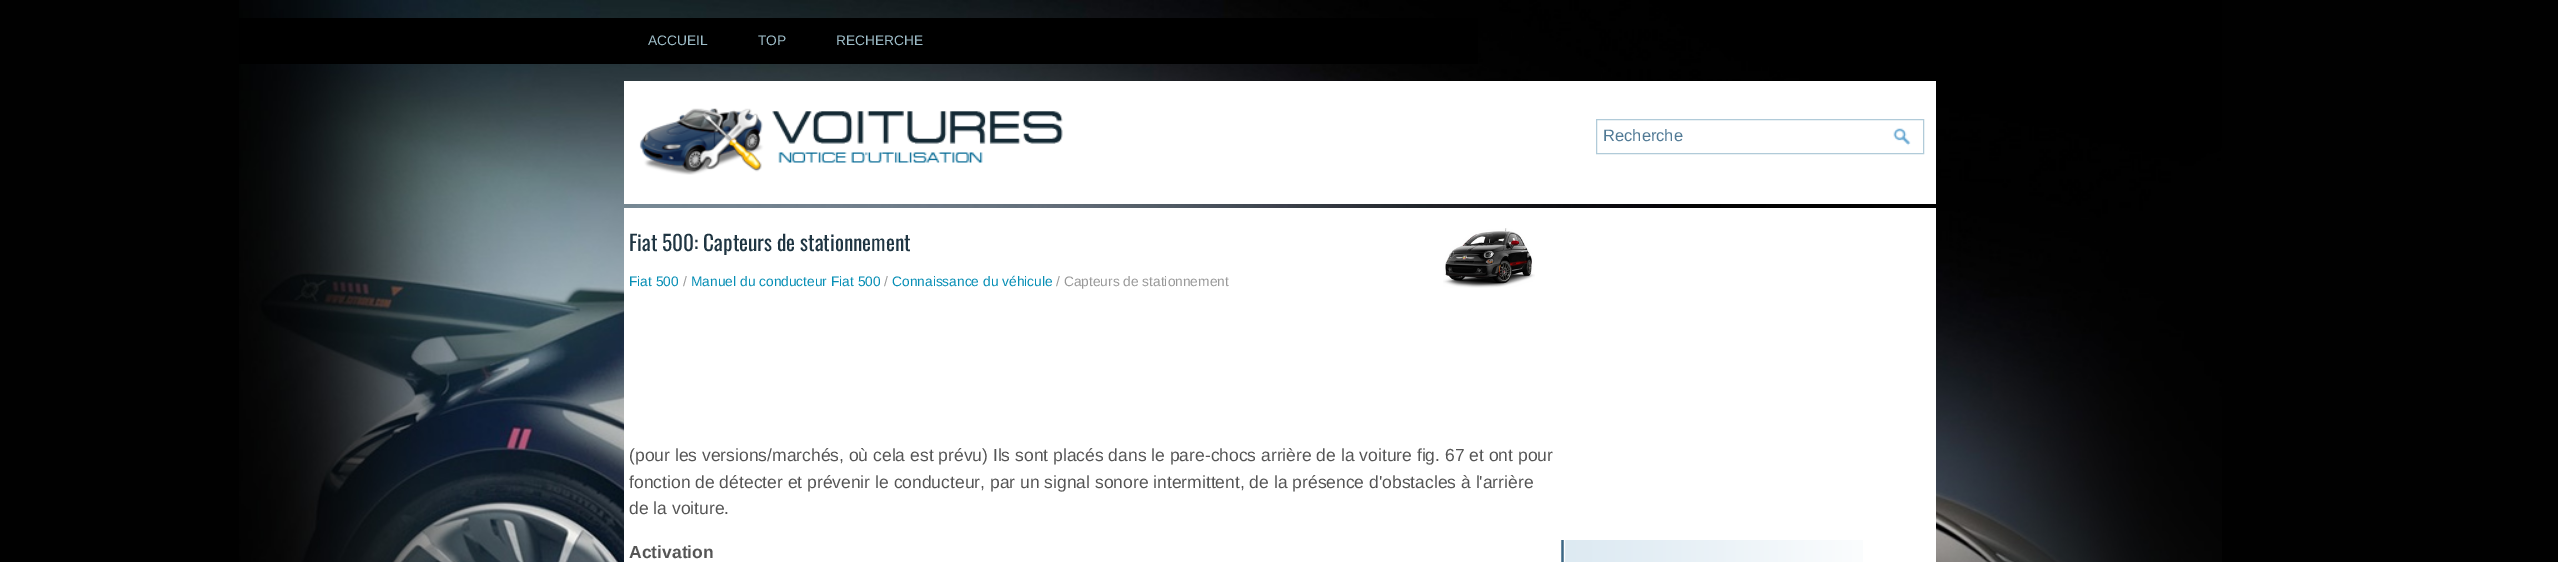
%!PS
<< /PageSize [2558 562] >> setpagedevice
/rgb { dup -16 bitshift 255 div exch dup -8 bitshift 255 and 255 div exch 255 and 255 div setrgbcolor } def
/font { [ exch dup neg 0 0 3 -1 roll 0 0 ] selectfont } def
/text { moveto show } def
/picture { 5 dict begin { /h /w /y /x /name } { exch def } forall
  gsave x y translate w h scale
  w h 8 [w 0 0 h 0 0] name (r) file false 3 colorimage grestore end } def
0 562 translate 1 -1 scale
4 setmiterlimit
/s1 { /LiberationSans-Regular 13.75 font 16#9EBDC8 rgb } def
/s2 { /LiberationSans-Regular 16.5 font 16#517A95 rgb } def
/s3 { /Oswald-Regular 21.25 font 16#1F3542 rgb } def
/s4 { /LiberationSans-Regular 13.75 font 16#058EB5 rgb } def
/s5 { /LiberationSans-Regular 13.75 font 16#999999 rgb } def
/s6 { /LiberationSans-Regular 17.5 font 16#555555 rgb } def
/s7 { /LiberationSans-Bold 17.5 font 16#555555 rgb } def
16#010101 rgb
0 0 2558 562 rectfill
(pic1.raw) 239 0 1983 562 picture
16#000000 rgb
239 18 1239 46 rectfill
s1
(ACCUEIL) 648 45 text
(TOP) 758 45 text
(RECHERCHE) 836 45 text
16#FFFFFF rgb
624 81 1312 123 rectfill
(pic2.raw) 639 108 424 67 picture
16#B1CBD9 rgb
1596.5 119.5 327 34 rectstroke
s2
(Recherche) 1603 141 text
(pic3.raw) 1893 128 18 18 picture
16#FFFFFF rgb
624 208 1312 354 rectfill
s3
(Fiat 500: Capteurs de stationnement) 629 251 text
(pic4.raw) 1443 228 92 60 picture
s4
(Fiat 500) 629 286 text
s5
(/) 683 286 text
s4
(Manuel du conducteur Fiat 500) 691 286 text
s5
(/) 884 286 text
s4
(Connaissance du véhicule) 892 286 text
s5
(/ Capteurs de stationnement) 1056 286 text
s6
(\(pour les versions/marchés, où cela est prévu\) Ils sont placés dans le pare-chocs arrière de la voiture fig. 67 et ont pour) 629 461 text
(fonction de détecter et prévenir le conducteur, par un signal sonore intermittent, de la présence d'obstacles à l'arrière) 629 488 text
(de la voiture.) 629 514 text
s7
(Activation) 629 558 text
(pic5.raw) 1561 540 302 22 picture
showpage
